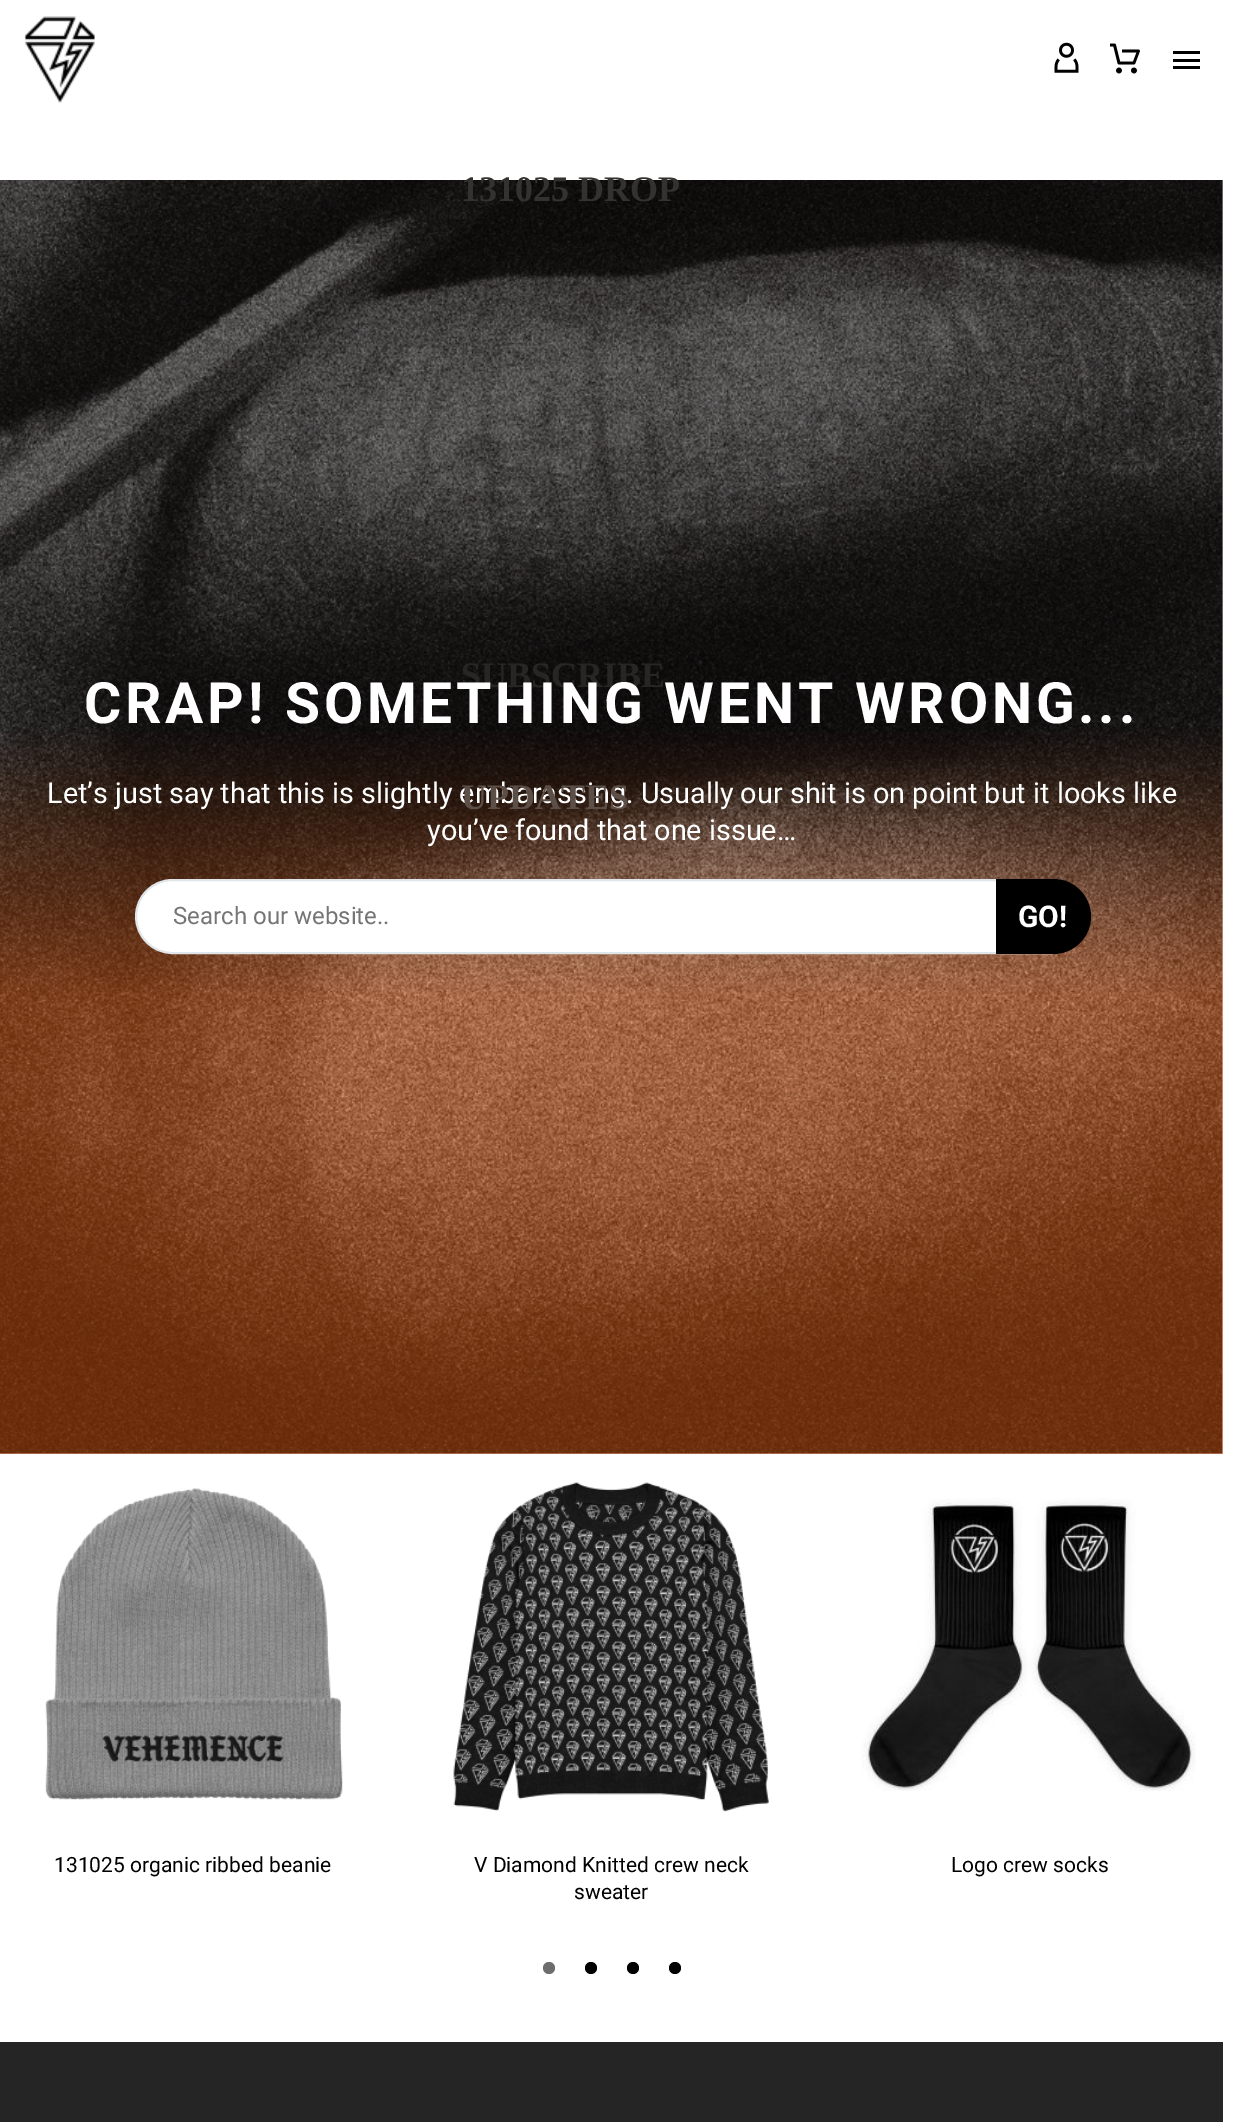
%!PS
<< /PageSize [1245 2122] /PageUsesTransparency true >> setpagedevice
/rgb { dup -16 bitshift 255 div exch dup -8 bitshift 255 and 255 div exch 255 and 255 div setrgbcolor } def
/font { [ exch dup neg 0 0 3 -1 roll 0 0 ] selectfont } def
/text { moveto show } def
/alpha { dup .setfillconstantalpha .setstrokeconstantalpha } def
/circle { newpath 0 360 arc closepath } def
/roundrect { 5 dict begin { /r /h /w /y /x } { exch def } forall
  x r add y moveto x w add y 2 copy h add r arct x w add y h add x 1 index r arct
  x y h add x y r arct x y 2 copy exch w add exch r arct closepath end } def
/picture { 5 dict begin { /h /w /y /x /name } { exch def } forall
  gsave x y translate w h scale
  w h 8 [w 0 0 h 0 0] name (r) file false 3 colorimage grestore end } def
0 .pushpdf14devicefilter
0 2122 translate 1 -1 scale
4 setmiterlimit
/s1 { /LiberationSerif-Bold 36 font 16#333231 rgb } def
/s2 { /LiberationSerif-Bold 36 font 16#282625 rgb } def
/s3 { /Roboto-Regular 28.8 font 16#FFFFFF rgb } def
/s4 { /LiberationSerif-Bold 36 font 16#5C4F48 rgb } def
/s5 { /Roboto-Regular 24 font 16#757575 rgb } def
/s6 { /Roboto-Bold 30 font 16#FFFFFF rgb } def
/s7 { /Roboto-Regular 21 font 16#000000 rgb } def
16#FFFFFF rgb
0 0 1245 2122 rectfill
(pic1.raw) 24 16 71 87 picture
(pic2.raw) 1054 42 25 31 picture
(pic3.raw) 1110 43 30 31 picture
16#000000 rgb
1173 51 27 3 rectfill
1173 59 27 3 rectfill
1173 66 27 3 rectfill
(pic4.raw) 0 180 1223 1274 picture
0.5 alpha
gsave 0 180 moveto 1223 180 lineto 1223 1454 lineto 0 1454 lineto closepath clip newpath
<< /ShadingType 2 /ColorSpace /DeviceRGB /Coords [611 180 611 1454] /Extend [true true] /Function << /FunctionType 3 /Domain [0 1] /Functions [<< /FunctionType 2 /Domain [0 1] /C0 [0 0 0] /C1 [0 0 0] /N 1 >> << /FunctionType 2 /Domain [0 1] /C0 [0 0 0] /C1 [0.722 0.255 0] /N 1 >> << /FunctionType 2 /Domain [0 1] /C0 [0.722 0.255 0] /C1 [0.722 0.255 0] /N 1 >>] /Bounds [0.43 0.64] /Encode [0 1 0 1 0 1] >> >> shfill grestore
1 alpha
s1
(131025 DROP) 461 201 text
s2
(SUBSCRIBE) 461 687 text
s3
(Let’s just say that this is slightly embarassing. Usually our shit is on point but it looks like) 47 803 text
s4
(UPDATES) 461 809 text
/Roboto-Bold 57 font
16#FFFFFF rgb
84 723 moveto 3.75 0 (CRAP! SOMETHING WENT WRONG...) ashow
s3
(you’ve found that one issue…) 427 840 text
136 880 952 73 36.5 roundrect gsave fill grestore
16#DFE5E8 rgb
2 setlinewidth
stroke
s5
(Search our website..) 173 924 text
16#000000 rgb
996 879 moveto 1053.5 879 lineto 1074 879 1091 896 1091 916.5 curveto 1091 937 1074 954 1053.5 954 curveto 996 954 lineto closepath fill
s6
(GO!) 1018 927 text
(pic5.raw) 45 1488 298 312 picture
s7
(131025 organic ribbed beanie) 54 1872 text
(pic6.raw) 453 1482 316 330 picture
(V Diamond Knitted crew neck) 474 1872 text
(sweater) 574 1899 text
(pic7.raw) 861 1498 335 293 picture
(Logo crew socks) 951 1872 text
16#6D6D6D rgb
549 1968 6 circle fill
16#000000 rgb
591 1968 6 circle fill
633 1968 6 circle fill
675 1968 6 circle fill
16#252525 rgb
0 2042 1223 80 rectfill
.poppdf14devicefilter showpage
